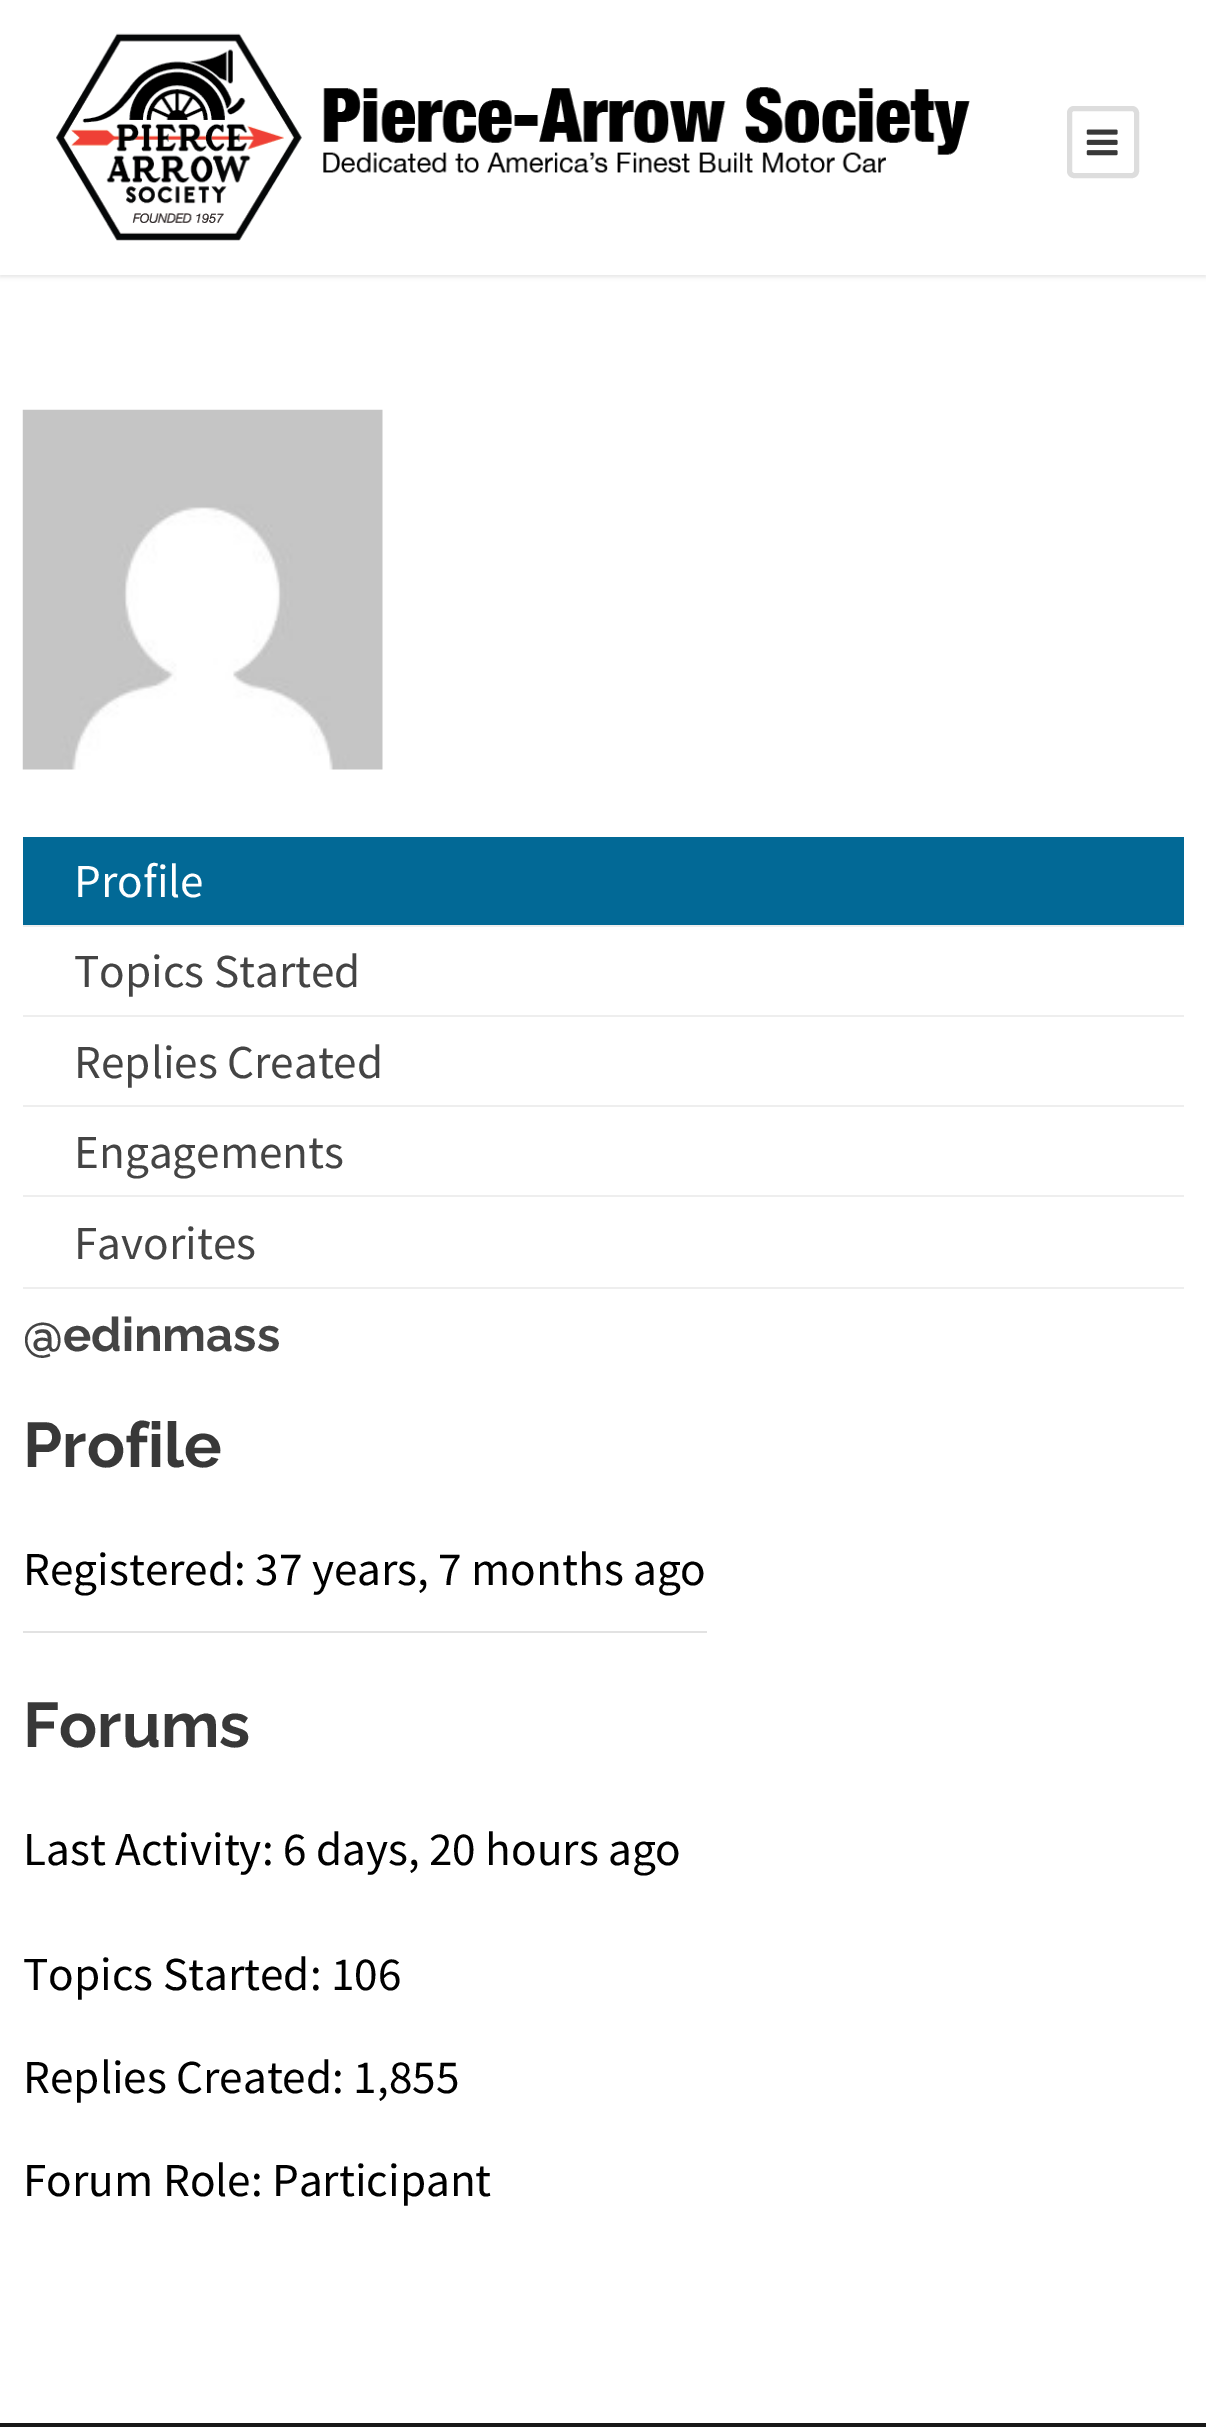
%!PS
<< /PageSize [1206 2427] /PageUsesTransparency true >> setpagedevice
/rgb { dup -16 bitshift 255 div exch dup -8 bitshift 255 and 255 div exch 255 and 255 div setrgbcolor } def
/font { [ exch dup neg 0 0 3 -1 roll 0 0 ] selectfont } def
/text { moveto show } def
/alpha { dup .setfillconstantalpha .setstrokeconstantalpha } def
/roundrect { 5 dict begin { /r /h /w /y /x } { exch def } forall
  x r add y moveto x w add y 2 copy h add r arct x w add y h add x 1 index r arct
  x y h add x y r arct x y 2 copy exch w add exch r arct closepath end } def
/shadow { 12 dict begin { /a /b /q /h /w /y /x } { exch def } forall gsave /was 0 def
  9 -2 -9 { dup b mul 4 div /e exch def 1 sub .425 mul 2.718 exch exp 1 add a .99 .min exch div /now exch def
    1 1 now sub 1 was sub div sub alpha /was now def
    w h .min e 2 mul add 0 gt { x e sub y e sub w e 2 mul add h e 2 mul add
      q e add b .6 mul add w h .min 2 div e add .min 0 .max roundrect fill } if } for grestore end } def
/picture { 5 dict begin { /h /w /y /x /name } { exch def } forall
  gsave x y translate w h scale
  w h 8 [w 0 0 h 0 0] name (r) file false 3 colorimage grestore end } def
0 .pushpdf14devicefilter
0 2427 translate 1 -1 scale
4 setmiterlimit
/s1 { /SourceSansPro-Regular 47.25 font 16#FFFFFF rgb } def
/s2 { /SourceSansPro-Regular 47.25 font 16#444444 rgb } def
/s3 { /Raleway-Bold 47.25 font 16#444444 rgb } def
/s4 { /Raleway-Bold 63 font 16#383838 rgb } def
/s5 { /SourceSansPro-Regular 47.25 font 16#000000 rgb } def
16#FFFFFF rgb
0 0 1206 2427 rectfill
16#000000 rgb
0 2 1206 275 0 2 0.1 shadow
16#FFFFFF rgb
0 0 1206 275 rectfill
(pic1.raw) 56 33 914 208 picture
16#DDDDDD rgb
5 setlinewidth
1069.5 108.5 67 67 4.5 roundrect stroke
(pic2.raw) 1086 129 32 27 picture
(pic3.raw) 22 409 361 361 picture
16#026996 rgb
23 837 1161 88 rectfill
16#EEEEEE rgb
23 925 1161 2 rectfill
s1
(Profile) 74 897 text
16#EEEEEE rgb
23 1015 1161 2 rectfill
s2
(Topics Started) 74 987 text
16#EEEEEE rgb
23 1105 1161 2 rectfill
s2
(Replies Created) 74 1078 text
16#EEEEEE rgb
23 1195 1161 2 rectfill
s2
(Engagements) 74 1168 text
16#EEEEEE rgb
23 1287 1161 2 rectfill
s2
(Favorites) 74 1259 text
s3
(@edinmass) 23 1351 text
s4
(Profile) 23 1467 text
s5
(Registered: 37 years, 7 months ago) 23 1585 text
16#E2E2E2 rgb
23 1631 684 2 rectfill
s4
(Forums) 23 1747 text
s5
(Last Activity: 6 days, 20 hours ago) 23 1865 text
(Topics Started: 106) 23 1990 text
(Replies Created: 1,855) 23 2093 text
(Forum Role: Participant) 23 2196 text
16#181818 rgb
0 2423 1206 4 rectfill
.poppdf14devicefilter showpage
